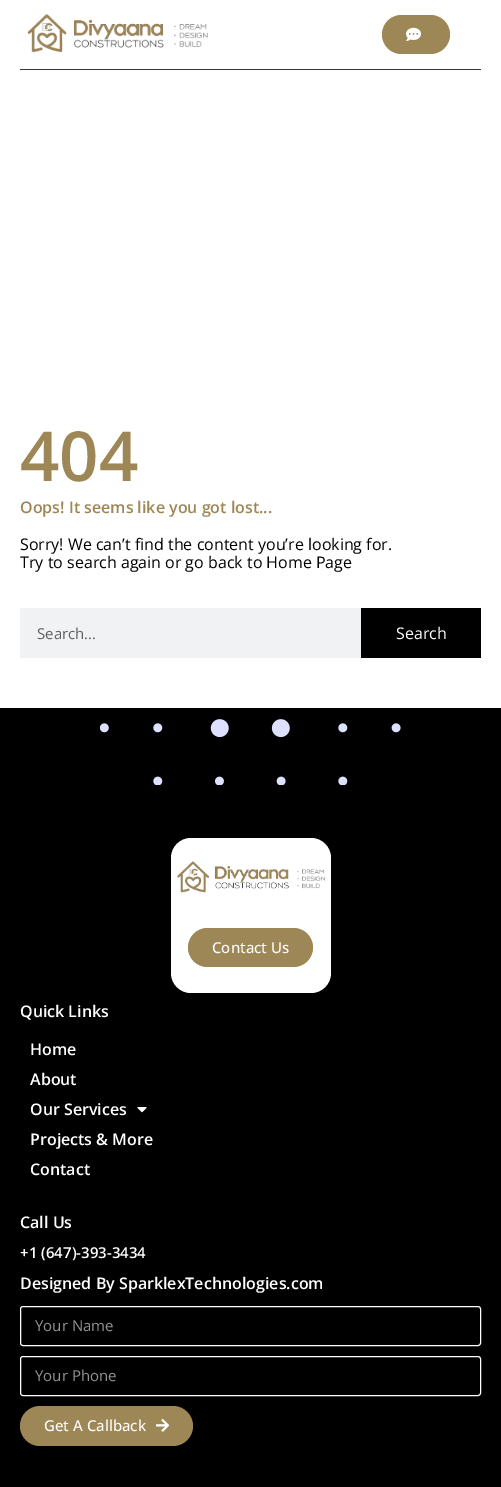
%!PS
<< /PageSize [501 1487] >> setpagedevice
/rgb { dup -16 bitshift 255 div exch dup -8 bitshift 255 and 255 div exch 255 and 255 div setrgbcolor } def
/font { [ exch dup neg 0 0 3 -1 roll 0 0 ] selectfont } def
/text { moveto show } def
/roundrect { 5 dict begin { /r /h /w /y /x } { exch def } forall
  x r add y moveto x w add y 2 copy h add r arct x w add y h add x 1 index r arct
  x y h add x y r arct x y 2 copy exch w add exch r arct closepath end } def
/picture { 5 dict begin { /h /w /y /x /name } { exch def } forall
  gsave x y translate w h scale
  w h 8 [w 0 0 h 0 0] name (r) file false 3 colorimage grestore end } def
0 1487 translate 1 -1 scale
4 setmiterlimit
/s1 { /OpenSans-SemiBold 69 font 16#9E8757 rgb } def
/s2 { /OpenSans-SemiBold 16 font 16#9E8757 rgb } def
/s3 { /OpenSans-Regular 16 font 16#000000 rgb } def
/s4 { /OpenSans-Regular 15 font 16#606161 rgb } def
/s5 { /OpenSans-Regular 16 font 16#FFFFFF rgb } def
/s6 { /OpenSans-Medium 15 font 16#FFFFFF rgb } def
/s7 { /OpenSans-SemiBold 16 font 16#FFFFFF rgb } def
/s8 { /OpenSans-SemiBold 15 font 16#FFFFFF rgb } def
/s9 { /OpenSans-Regular 15 font 16#939393 rgb } def
16#FFFFFF rgb
0 0 501 1487 rectfill
16#383838 rgb
20 69 461 1 rectfill
(pic1.raw) 27 14 182 39 picture
16#9E8757 rgb
382 15 68 39 19.5 roundrect fill
(pic2.raw) 406 27 15 14 picture
s1
(404) 20 481 text
s2
(Oops! It seems like you got lost...) 20 513 text
s3
(Sorry! We can’t find the content you’re looking for.) 20 550 text
(Try to search again or go back to Home Page) 20 568 text
16#F1F2F3 rgb
20 608 341 50 rectfill
s4
(Search...) 37 639 text
16#000000 rgb
361 608 120 50 rectfill
s5
(Search) 396 639 text
16#000000 rgb
0 708 501 779 rectfill
(pic3.raw) 100 719 301 66 picture
16#FFFFFF rgb
171 838 160 155 20 roundrect fill
(pic4.raw) 177 861 149 32 picture
16#9E8757 rgb
188 928 125 39 19.5 roundrect fill
s6
(Contact Us) 212 953 text
s7
(Quick Links) 20 1017 text
(Home) 30 1055 text
(About) 30 1085 text
(Our Services) 30 1115 text
(pic5.raw) 137 1107 10 6 picture
(Projects & More) 30 1145 text
(Contact) 30 1175 text
(Call Us) 20 1228 text
s8
(+1 \(647\)-393-3434) 20 1258 text
s7
(Designed By SparklexTechnologies.com) 20 1289 text
20.5 1306.5 460 39 2.5 roundrect stroke
s9
(Your Name) 35 1331 text
16#FFFFFF rgb
20.5 1356.5 460 39 2.5 roundrect stroke
s9
(Your Phone) 35 1381 text
16#9E8757 rgb
20 1406 173 40 20 roundrect fill
s6
(Get A Callback) 44 1431 text
(pic6.raw) 156 1419 14 13 picture
showpage
